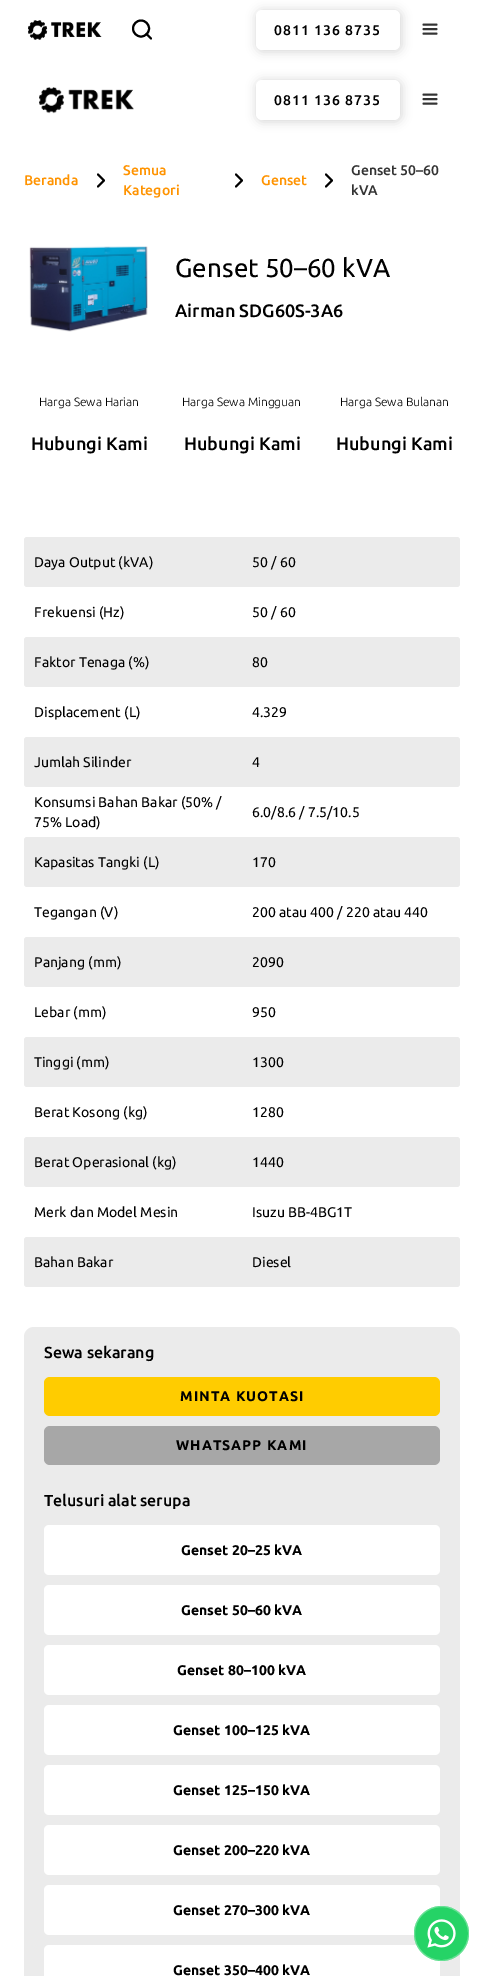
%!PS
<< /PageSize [484 1976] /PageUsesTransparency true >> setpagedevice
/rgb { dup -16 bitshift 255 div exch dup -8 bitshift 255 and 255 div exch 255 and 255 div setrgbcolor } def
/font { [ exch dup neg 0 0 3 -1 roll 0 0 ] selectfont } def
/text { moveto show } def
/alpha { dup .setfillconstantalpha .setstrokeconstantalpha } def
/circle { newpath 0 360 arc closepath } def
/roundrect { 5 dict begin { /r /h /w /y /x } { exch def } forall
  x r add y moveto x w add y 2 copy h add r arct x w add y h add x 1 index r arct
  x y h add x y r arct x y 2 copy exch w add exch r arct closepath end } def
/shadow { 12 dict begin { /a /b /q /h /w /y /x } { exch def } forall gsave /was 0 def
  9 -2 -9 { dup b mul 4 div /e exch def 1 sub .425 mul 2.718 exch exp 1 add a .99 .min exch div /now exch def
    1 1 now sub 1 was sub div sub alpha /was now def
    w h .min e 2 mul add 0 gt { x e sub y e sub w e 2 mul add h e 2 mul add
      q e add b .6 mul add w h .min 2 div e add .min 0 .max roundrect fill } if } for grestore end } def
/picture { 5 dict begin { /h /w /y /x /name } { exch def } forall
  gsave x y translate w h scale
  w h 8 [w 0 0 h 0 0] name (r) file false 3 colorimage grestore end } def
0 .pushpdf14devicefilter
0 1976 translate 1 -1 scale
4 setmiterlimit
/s1 { /Ubuntu-Medium 14 font 16#FF9300 rgb } def
/s2 { /Ubuntu-Medium 14 font 16#333333 rgb } def
/s3 { /Ubuntu-Regular 26 font 16#000000 rgb } def
/s4 { /Ubuntu-Medium 18 font 16#000000 rgb } def
/s5 { /Ubuntu-Light 12 font 16#000000 rgb } def
/s6 { /Ubuntu-Regular 14 font 16#000000 rgb } def
/s7 { /Ubuntu-Medium 16 font 16#000000 rgb } def
/s8 { /Ubuntu-Bold 14 font 16#000000 rgb } def
16#FFFFFF rgb
0 0 484 1976 rectfill
(pic1.raw) 28 20 74 20 picture
16#000000 rgb
2 setlinewidth
141 28.5 8 circle stroke
1 setlinecap
1 setlinejoin
151 38.5 moveto 146.5 34 lineto stroke
256 10 146 42 7 5 0.15 shadow
16#FFFFFF rgb
256 10 144 40 6 roundrect fill
/Ubuntu-Medium 14 font
16#000000 rgb
274 35 moveto 1 0 (0811 136 8735) ashow
(pic2.raw) 422 23 16 12 picture
(pic3.raw) 39 87 95 27 picture
256 80 146 42 7 5 0.15 shadow
16#FFFFFF rgb
256 80 144 40 6 roundrect fill
16#000000 rgb
274 105 moveto 1 0 (0811 136 8735) ashow
(pic2.raw) 422 93 16 12 picture
s1
(Beranda) 24 185 text
16#000000 rgb
98 186.5 moveto 104 180.5 lineto 98 174.5 lineto stroke
s1
(Semua) 123 175 text
(Kategori) 123 195 text
16#000000 rgb
236 186.5 moveto 242 180.5 lineto 236 174.5 lineto stroke
s1
(Genset) 261 185 text
16#000000 rgb
326 186.5 moveto 332 180.5 lineto 326 174.5 lineto stroke
s2
(Genset 50–60) 351 175 text
(kVA) 351 195 text
(pic4.raw) 29 246 119 86 picture
s3
(Genset 50–60 kVA) 175 277 text
s4
(Airman SDG60S-3A6) 175 317 text
s5
(Harga Sewa Harian) 39 406 text
s4
(Hubungi Kami) 31 450 text
s5
(Harga Sewa Mingguan) 182 406 text
s4
(Hubungi Kami) 184 450 text
s5
(Harga Sewa Bulanan) 340 406 text
s4
(Hubungi Kami) 336 450 text
16#EBEBEB rgb
24 537 436 50 3 roundrect fill
s6
(Daya Output \(kVA\)) 34 567 text
(50 / 60) 252 567 text
(Frekuensi \(Hz\)) 34 617 text
(50 / 60) 252 617 text
16#EBEBEB rgb
24 637 436 50 3 roundrect fill
s6
(Faktor Tenaga \(%\)) 34 667 text
(80) 252 667 text
(Displacement \(L\)) 34 717 text
(4.329) 252 717 text
16#EBEBEB rgb
24 737 436 50 3 roundrect fill
s6
(Jumlah Silinder) 34 767 text
(4) 252 767 text
(Konsumsi Bahan Bakar \(50% /) 34 807 text
(75% Load\)) 34 827 text
(6.0/8.6 / 7.5/10.5) 252 817 text
16#EBEBEB rgb
24 837 436 50 3 roundrect fill
s6
(Kapasitas Tangki \(L\)) 34 867 text
(170) 252 867 text
(Tegangan \(V\)) 34 917 text
(200 atau 400 / 220 atau 440) 252 917 text
16#EBEBEB rgb
24 937 436 50 3 roundrect fill
s6
(Panjang \(mm\)) 34 967 text
(2090) 252 967 text
(Lebar \(mm\)) 34 1017 text
(950) 252 1017 text
16#EBEBEB rgb
24 1037 436 50 3 roundrect fill
s6
(Tinggi \(mm\)) 34 1067 text
(1300) 252 1067 text
(Berat Kosong \(kg\)) 34 1117 text
(1280) 252 1117 text
16#EBEBEB rgb
24 1137 436 50 3 roundrect fill
s6
(Berat Operasional \(kg\)) 34 1167 text
(1440) 252 1167 text
(Merk dan Model Mesin) 34 1217 text
(Isuzu BB-4BG1T) 252 1217 text
16#EBEBEB rgb
24 1237 436 50 3 roundrect fill
s6
(Bahan Bakar) 34 1267 text
(Diesel) 252 1267 text
16#EBEBEB rgb
24 1327 436 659 10 roundrect fill
s7
(Sewa sekarang) 44 1358 text
16#FFCC00 rgb
44 1377 396 39 6 roundrect fill
/Ubuntu-Bold 14 font
16#000000 rgb
180 1401 moveto 1 0 (MINTA KUOTASI) ashow
16#A7A7A7 rgb
44 1426 396 39 6 roundrect fill
16#000000 rgb
176 1450 moveto 1 0 (WHATSAPP KAMI) ashow
s7
(Telusuri alat serupa) 44 1506 text
16#FFFFFF rgb
44 1525 396 50 5 roundrect fill
s8
(Genset 20–25 kVA) 181 1555 text
16#FFFFFF rgb
44 1585 396 50 5 roundrect fill
s8
(Genset 50–60 kVA) 181 1615 text
16#FFFFFF rgb
44 1645 396 50 5 roundrect fill
s8
(Genset 80–100 kVA) 177 1675 text
16#FFFFFF rgb
44 1705 396 50 5 roundrect fill
s8
(Genset 100–125 kVA) 173 1735 text
16#FFFFFF rgb
44 1765 396 50 5 roundrect fill
s8
(Genset 125–150 kVA) 173 1795 text
16#FFFFFF rgb
44 1825 396 50 5 roundrect fill
s8
(Genset 200–220 kVA) 173 1855 text
16#FFFFFF rgb
44 1885 396 50 5 roundrect fill
s8
(Genset 270–300 kVA) 173 1915 text
16#FFFFFF rgb
44 1945 396 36 5 roundrect fill
s8
(Genset 350–400 kVA) 173 1975 text
16#25D366 rgb
441.5 1933.5 27.5 circle fill
0.3 alpha
16#FFFFFF rgb
1 setlinewidth
0 setlinecap
0 setlinejoin
441.5 1933.5 27 circle stroke
1 alpha
(pic5.raw) 427 1919 29 29 picture
.poppdf14devicefilter showpage
